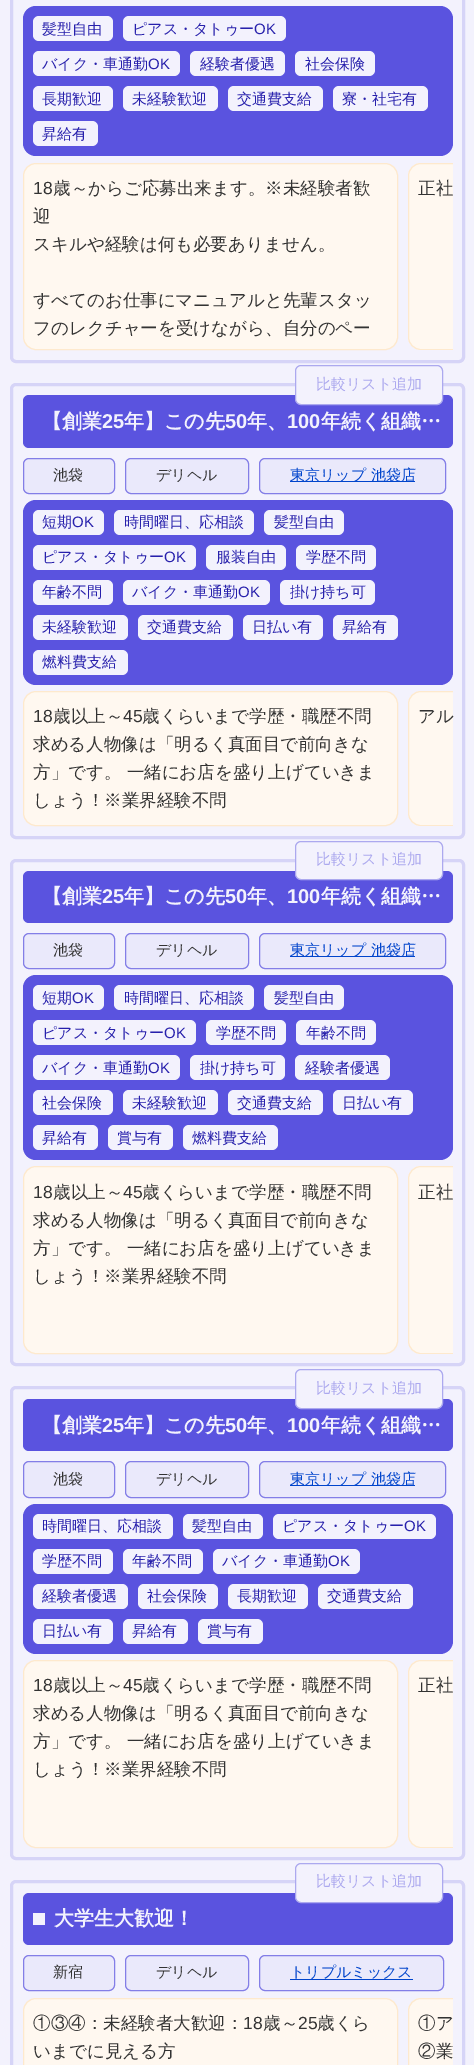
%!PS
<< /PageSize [474 2065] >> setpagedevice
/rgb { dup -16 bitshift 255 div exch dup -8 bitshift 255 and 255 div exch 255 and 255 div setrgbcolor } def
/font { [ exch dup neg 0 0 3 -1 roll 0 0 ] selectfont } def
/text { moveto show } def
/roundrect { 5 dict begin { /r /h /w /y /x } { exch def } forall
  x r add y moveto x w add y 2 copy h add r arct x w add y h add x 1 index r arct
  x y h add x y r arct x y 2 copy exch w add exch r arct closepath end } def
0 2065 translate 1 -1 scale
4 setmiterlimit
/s1 { /WenQuanYiZenHei-Medium 15 font 16#2720AC rgb } def
/s2 { /LiberationSans-Regular 15 font 16#2720AC rgb } def
/s3 { /LiberationSans-Regular 17.5 font 16#333333 rgb } def
/s4 { /WenQuanYiZenHei-Medium 17.5 font 16#333333 rgb } def
/s5 { /WenQuanYiZenHei-Medium 15 font 16#ACA9EF rgb } def
/s6 { /WenQuanYiZenHei-Bold 20 font 16#F3F2FD rgb } def
/s7 { /LiberationSans-Bold 20 font 16#F3F2FD rgb } def
/s8 { /WenQuanYiZenHei-Medium 15 font 16#333333 rgb } def
/s9 { /WenQuanYiZenHei-Medium 15 font 16#0044CC rgb } def
16#F3F2FD rgb
0 0 474 2065 rectfill
16#D6D4F7 rgb
3 setlinewidth
11.5 -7.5 452 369 4.5 roundrect stroke
16#5A53DF rgb
23 6 430 150 13 roundrect fill
16#F3F2FD rgb
33 16 80 25 6 roundrect fill
s1
(髪型自由) 42 34 text
16#F3F2FD rgb
123 16 163 25 6 roundrect fill
s1
(ピアス・タトゥー) 132 34 text
s2
(OK) 254 34 text
16#F3F2FD rgb
33 51 147 25 6 roundrect fill
s1
(バイク・車通勤) 42 69 text
s2
(OK) 148 69 text
16#F3F2FD rgb
190 51 95 25 6 roundrect fill
s1
(経験者優遇) 200 69 text
16#F3F2FD rgb
295 51 80 25 6 roundrect fill
s1
(社会保険) 305 69 text
16#F3F2FD rgb
33 86 80 25 6 roundrect fill
s1
(長期歓迎) 42 104 text
16#F3F2FD rgb
123 86 95 25 6 roundrect fill
s1
(未経験歓迎) 132 104 text
16#F3F2FD rgb
228 86 95 25 6 roundrect fill
s1
(交通費支給) 237 104 text
16#F3F2FD rgb
333 86 95 25 6 roundrect fill
s1
(寮・社宅有) 342 104 text
16#F3F2FD rgb
33 121 65 25 6 roundrect fill
s1
(昇給有) 42 139 text
16#FFF8F0 rgb
23.5 163.5 374 186 12.5 roundrect gsave fill grestore
16#FEE9CD rgb
1 setlinewidth
stroke
s3
(18) 33 194 text
s4
(歳～からご応募出来ます。※未経験者歓) 53 194 text
(迎) 33 222 text
(スキルや経験は何も必要ありません。) 33 250 text
(すべてのお仕事にマニュアルと先輩スタッ) 33 306 text
(フのレクチャーを受けながら、自分のペー) 33 334 text
16#FFF8F0 rgb
421 163 moveto 453 163 lineto 453 350 lineto 421 350 lineto 414 350 408 344 408 337 curveto 408 176 lineto 408 169 414 163 421 163 curveto closepath fill
gsave
23 163 430 187 rectclip
16#FEE9CD rgb
408.5 163.5 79 186 12.5 roundrect stroke
grestore
s4
(正社) 418 194 text
16#D6D4F7 rgb
3 setlinewidth
11.5 384.5 452 453 4.5 roundrect stroke
16#5A53DF rgb
23 395 430 53 6 roundrect fill
16#F3F2FD rgb
295.5 365.5 147 39 5.5 roundrect gsave fill grestore
16#ACA9EF rgb
1 setlinewidth
stroke
s5
(比較リスト追加) 316 389 text
s6
(【創業) 42 428 text
s7
(25) 102 428 text
s6
(年】この先) 124 428 text
s7
(50) 225 428 text
s6
(年、) 247 428 text
s7
(100) 287 428 text
s6
(年続く組織…) 321 428 text
16#EAE9FB rgb
23.5 458.5 91 35 5.5 roundrect gsave fill grestore
16#837EE7 rgb
stroke
s8
(池袋) 53 480 text
16#EAE9FB rgb
125.5 458.5 123 35 5.5 roundrect gsave fill grestore
16#837EE7 rgb
stroke
s8
(デリヘル) 156 480 text
16#EAE9FB rgb
259.5 458.5 186 35 5.5 roundrect gsave fill grestore
16#837EE7 rgb
stroke
16#0044CC rgb
290 481 125 1 rectfill
(東京リップ 池袋店) 290 480 text
16#5A53DF rgb
23 500 430 185 13 roundrect fill
16#F3F2FD rgb
33 510 71 25 6 roundrect fill
s1
(短期) 42 527 text
s2
(OK) 72 527 text
16#F3F2FD rgb
114 510 140 25 6 roundrect fill
s1
(時間曜日、応相談) 124 527 text
16#F3F2FD rgb
264 510 80 25 6 roundrect fill
s1
(髪型自由) 274 527 text
16#F3F2FD rgb
33 545 163 25 6 roundrect fill
s1
(ピアス・タトゥー) 42 562 text
s2
(OK) 164 562 text
16#F3F2FD rgb
206 545 80 25 6 roundrect fill
s1
(服装自由) 216 562 text
16#F3F2FD rgb
296 545 80 25 6 roundrect fill
s1
(学歴不問) 306 562 text
16#F3F2FD rgb
33 580 80 25 6 roundrect fill
s1
(年齢不問) 42 597 text
16#F3F2FD rgb
123 580 147 25 6 roundrect fill
s1
(バイク・車通勤) 132 597 text
s2
(OK) 238 597 text
16#F3F2FD rgb
280 580 95 25 6 roundrect fill
s1
(掛け持ち可) 290 597 text
16#F3F2FD rgb
33 615 95 25 6 roundrect fill
s1
(未経験歓迎) 42 632 text
16#F3F2FD rgb
138 615 95 25 6 roundrect fill
s1
(交通費支給) 147 632 text
16#F3F2FD rgb
243 615 80 25 6 roundrect fill
s1
(日払い有) 252 632 text
16#F3F2FD rgb
333 615 65 25 6 roundrect fill
s1
(昇給有) 342 632 text
16#F3F2FD rgb
33 650 95 25 6 roundrect fill
s1
(燃料費支給) 42 667 text
16#FFF8F0 rgb
23.5 691.5 374 134 12.5 roundrect gsave fill grestore
16#FEE9CD rgb
stroke
s3
(18) 33 722 text
s4
(歳以上～) 53 722 text
s3
(45) 123 722 text
s4
(歳くらいまで学歴・職歴不問) 142 722 text
(求める人物像は「明るく真面目で前向きな) 33 750 text
(方」です。 一緒にお店を盛り上げていきま) 33 778 text
(しょう！※業界経験不問) 33 806 text
16#FFF8F0 rgb
421 691 moveto 453 691 lineto 453 826 lineto 421 826 lineto 414 826 408 820 408 813 curveto 408 704 lineto 408 697 414 691 421 691 curveto closepath fill
gsave
23 691 430 135 rectclip
16#FEE9CD rgb
408.5 691.5 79 134 12.5 roundrect stroke
grestore
s4
(アル) 418 722 text
16#D6D4F7 rgb
3 setlinewidth
11.5 860.5 452 504 4.5 roundrect stroke
16#5A53DF rgb
23 871 430 52 6 roundrect fill
16#F3F2FD rgb
295.5 841.5 147 38 5.5 roundrect gsave fill grestore
16#ACA9EF rgb
1 setlinewidth
stroke
s5
(比較リスト追加) 316 864 text
s6
(【創業) 42 903 text
s7
(25) 102 903 text
s6
(年】この先) 124 903 text
s7
(50) 225 903 text
s6
(年、) 247 903 text
s7
(100) 287 903 text
s6
(年続く組織…) 321 903 text
16#EAE9FB rgb
23.5 933.5 91 35 5.5 roundrect gsave fill grestore
16#837EE7 rgb
stroke
s8
(池袋) 53 955 text
16#EAE9FB rgb
125.5 933.5 123 35 5.5 roundrect gsave fill grestore
16#837EE7 rgb
stroke
s8
(デリヘル) 156 955 text
16#EAE9FB rgb
259.5 933.5 186 35 5.5 roundrect gsave fill grestore
16#837EE7 rgb
stroke
16#0044CC rgb
290 956 125 1 rectfill
(東京リップ 池袋店) 290 955 text
16#5A53DF rgb
23 975 430 185 13 roundrect fill
16#F3F2FD rgb
33 985 71 25 6 roundrect fill
s1
(短期) 42 1003 text
s2
(OK) 72 1003 text
16#F3F2FD rgb
114 985 140 25 6 roundrect fill
s1
(時間曜日、応相談) 124 1003 text
16#F3F2FD rgb
264 985 80 25 6 roundrect fill
s1
(髪型自由) 274 1003 text
16#F3F2FD rgb
33 1020 163 25 6 roundrect fill
s1
(ピアス・タトゥー) 42 1038 text
s2
(OK) 164 1038 text
16#F3F2FD rgb
206 1020 80 25 6 roundrect fill
s1
(学歴不問) 216 1038 text
16#F3F2FD rgb
296 1020 80 25 6 roundrect fill
s1
(年齢不問) 306 1038 text
16#F3F2FD rgb
33 1055 147 25 6 roundrect fill
s1
(バイク・車通勤) 42 1073 text
s2
(OK) 148 1073 text
16#F3F2FD rgb
190 1055 95 25 6 roundrect fill
s1
(掛け持ち可) 200 1073 text
16#F3F2FD rgb
295 1055 95 25 6 roundrect fill
s1
(経験者優遇) 305 1073 text
16#F3F2FD rgb
33 1090 80 25 6 roundrect fill
s1
(社会保険) 42 1108 text
16#F3F2FD rgb
123 1090 95 25 6 roundrect fill
s1
(未経験歓迎) 132 1108 text
16#F3F2FD rgb
228 1090 95 25 6 roundrect fill
s1
(交通費支給) 237 1108 text
16#F3F2FD rgb
333 1090 80 25 6 roundrect fill
s1
(日払い有) 342 1108 text
16#F3F2FD rgb
33 1125 65 25 6 roundrect fill
s1
(昇給有) 42 1143 text
16#F3F2FD rgb
108 1125 65 25 6 roundrect fill
s1
(賞与有) 117 1143 text
16#F3F2FD rgb
183 1125 95 25 6 roundrect fill
s1
(燃料費支給) 192 1143 text
16#FFF8F0 rgb
23.5 1166.5 374 187 12.5 roundrect gsave fill grestore
16#FEE9CD rgb
stroke
s3
(18) 33 1198 text
s4
(歳以上～) 53 1198 text
s3
(45) 123 1198 text
s4
(歳くらいまで学歴・職歴不問) 142 1198 text
(求める人物像は「明るく真面目で前向きな) 33 1226 text
(方」です。 一緒にお店を盛り上げていきま) 33 1254 text
(しょう！※業界経験不問) 33 1282 text
16#FFF8F0 rgb
421 1166 moveto 453 1166 lineto 453 1354 lineto 421 1354 lineto 414 1354 408 1348 408 1341 curveto 408 1179 lineto 408 1172 414 1166 421 1166 curveto closepath fill
gsave
23 1166 430 188 rectclip
16#FEE9CD rgb
408.5 1166.5 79 187 12.5 roundrect stroke
grestore
s4
(正社) 418 1198 text
16#D6D4F7 rgb
3 setlinewidth
11.5 1387.5 452 471 4.5 roundrect stroke
16#5A53DF rgb
23 1399 430 52 6 roundrect fill
16#F3F2FD rgb
295.5 1369.5 147 39 5.5 roundrect gsave fill grestore
16#ACA9EF rgb
1 setlinewidth
stroke
s5
(比較リスト追加) 316 1393 text
s6
(【創業) 42 1432 text
s7
(25) 102 1432 text
s6
(年】この先) 124 1432 text
s7
(50) 225 1432 text
s6
(年、) 247 1432 text
s7
(100) 287 1432 text
s6
(年続く組織…) 321 1432 text
16#EAE9FB rgb
23.5 1461.5 91 36 5.5 roundrect gsave fill grestore
16#837EE7 rgb
stroke
s8
(池袋) 53 1484 text
16#EAE9FB rgb
125.5 1461.5 123 36 5.5 roundrect gsave fill grestore
16#837EE7 rgb
stroke
s8
(デリヘル) 156 1484 text
16#EAE9FB rgb
259.5 1461.5 186 36 5.5 roundrect gsave fill grestore
16#837EE7 rgb
stroke
16#0044CC rgb
290 1485 125 1 rectfill
(東京リップ 池袋店) 290 1484 text
16#5A53DF rgb
23 1504 430 150 13 roundrect fill
16#F3F2FD rgb
33 1514 140 25 6 roundrect fill
s1
(時間曜日、応相談) 42 1531 text
16#F3F2FD rgb
183 1514 80 25 6 roundrect fill
s1
(髪型自由) 192 1531 text
16#F3F2FD rgb
273 1514 163 25 6 roundrect fill
s1
(ピアス・タトゥー) 282 1531 text
s2
(OK) 404 1531 text
16#F3F2FD rgb
33 1549 80 25 6 roundrect fill
s1
(学歴不問) 42 1566 text
16#F3F2FD rgb
123 1549 80 25 6 roundrect fill
s1
(年齢不問) 132 1566 text
16#F3F2FD rgb
213 1549 147 25 6 roundrect fill
s1
(バイク・車通勤) 222 1566 text
s2
(OK) 328 1566 text
16#F3F2FD rgb
33 1584 95 25 6 roundrect fill
s1
(経験者優遇) 42 1601 text
16#F3F2FD rgb
138 1584 80 25 6 roundrect fill
s1
(社会保険) 147 1601 text
16#F3F2FD rgb
228 1584 80 25 6 roundrect fill
s1
(長期歓迎) 237 1601 text
16#F3F2FD rgb
318 1584 95 25 6 roundrect fill
s1
(交通費支給) 327 1601 text
16#F3F2FD rgb
33 1619 80 25 6 roundrect fill
s1
(日払い有) 42 1636 text
16#F3F2FD rgb
123 1619 65 25 6 roundrect fill
s1
(昇給有) 132 1636 text
16#F3F2FD rgb
198 1619 65 25 6 roundrect fill
s1
(賞与有) 207 1636 text
16#FFF8F0 rgb
23.5 1660.5 374 187 12.5 roundrect gsave fill grestore
16#FEE9CD rgb
stroke
s3
(18) 33 1691 text
s4
(歳以上～) 53 1691 text
s3
(45) 123 1691 text
s4
(歳くらいまで学歴・職歴不問) 142 1691 text
(求める人物像は「明るく真面目で前向きな) 33 1719 text
(方」です。 一緒にお店を盛り上げていきま) 33 1747 text
(しょう！※業界経験不問) 33 1775 text
16#FFF8F0 rgb
421 1660 moveto 453 1660 lineto 453 1848 lineto 421 1848 lineto 414 1848 408 1842 408 1835 curveto 408 1673 lineto 408 1666 414 1660 421 1660 curveto closepath fill
gsave
23 1660 430 188 rectclip
16#FEE9CD rgb
408.5 1660.5 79 187 12.5 roundrect stroke
grestore
s4
(正社) 418 1691 text
16#D6D4F7 rgb
3 setlinewidth
11.5 1881.5 452 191 4.5 roundrect stroke
16#5A53DF rgb
23 1893 430 52 6 roundrect fill
16#F3F2FD rgb
295.5 1863.5 147 39 5.5 roundrect gsave fill grestore
16#ACA9EF rgb
1 setlinewidth
stroke
s5
(比較リスト追加) 316 1886 text
16#F3F2FD rgb
33 1913 12 12 rectfill
s6
(大学生大歓迎！) 54 1925 text
16#EAE9FB rgb
23.5 1955.5 91 35 5.5 roundrect gsave fill grestore
16#837EE7 rgb
stroke
s8
(新宿) 53 1977 text
16#EAE9FB rgb
125.5 1955.5 123 35 5.5 roundrect gsave fill grestore
16#837EE7 rgb
stroke
s8
(デリヘル) 156 1977 text
16#EAE9FB rgb
259.5 1955.5 184 35 5.5 roundrect gsave fill grestore
16#837EE7 rgb
stroke
16#0044CC rgb
290 1979 123 1 rectfill
(トリプルミックス) 290 1977 text
16#FFF8F0 rgb
23.5 1998.5 374 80 12.5 roundrect gsave fill grestore
16#FEE9CD rgb
stroke
s4
(①③④：未経験者大歓迎：) 33 2029 text
s3
(18) 243 2029 text
s4
(歳～) 263 2029 text
s3
(25) 298 2029 text
s4
(歳くら) 317 2029 text
(いまでに見える方) 33 2057 text
16#FFF8F0 rgb
421 1998 moveto 453 1998 lineto 453 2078 lineto 421 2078 lineto 414 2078 408 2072 408 2065 curveto 408 2011 lineto 408 2004 414 1998 421 1998 curveto closepath fill
gsave
23 1998 430 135 rectclip
16#FEE9CD rgb
408.5 1998.5 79 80 12.5 roundrect stroke
grestore
s4
(①ア) 418 2029 text
(②業) 418 2057 text
showpage
